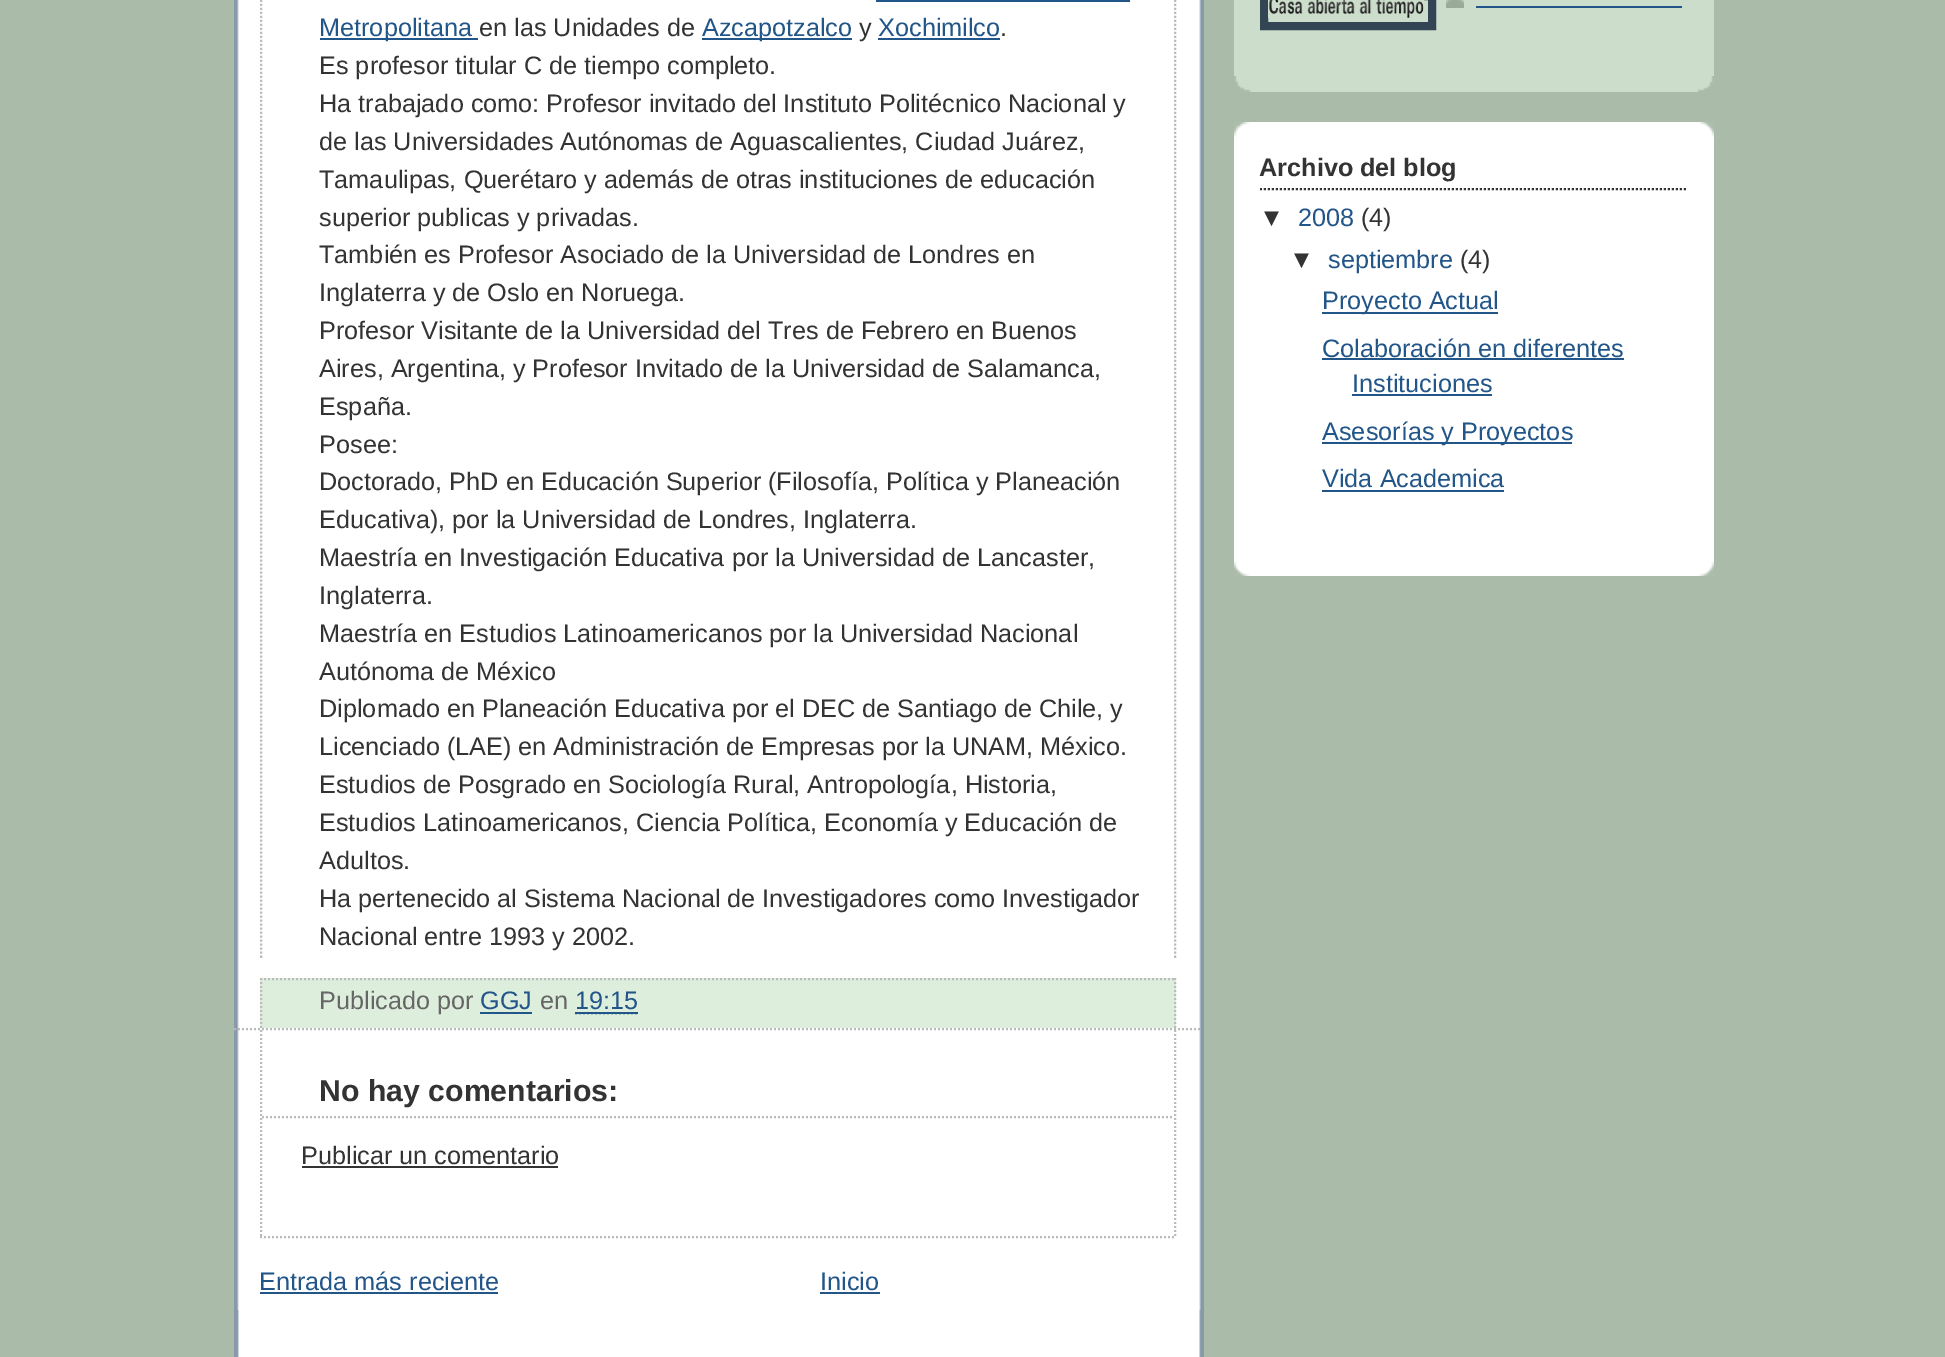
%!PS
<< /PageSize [1945 1357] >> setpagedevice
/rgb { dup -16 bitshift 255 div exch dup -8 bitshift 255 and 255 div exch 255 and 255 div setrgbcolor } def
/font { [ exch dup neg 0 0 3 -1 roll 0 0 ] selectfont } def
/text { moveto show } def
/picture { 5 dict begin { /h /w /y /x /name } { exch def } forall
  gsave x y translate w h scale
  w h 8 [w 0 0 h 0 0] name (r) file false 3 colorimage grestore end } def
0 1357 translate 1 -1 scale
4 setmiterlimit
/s1 { /LiberationSans-Regular 25.25 font 16#225588 rgb } def
/s2 { /LiberationSans-Regular 25.25 font 16#333333 rgb } def
/s3 { /LiberationSans-Regular 25.25 font 16#666666 rgb } def
/s4 { /LiberationSans-Bold 30.25 font 16#333333 rgb } def
/s5 { /LiberationSans-Bold 25.25 font 16#333333 rgb } def
16#AABBAA rgb
0 0 1945 1357 rectfill
16#FFFFFF rgb
237 0 964 1357 rectfill
(pic1.raw) 237 1310 964 47 picture
(pic2.raw) 234 0 970 1357 picture
16#BBBBBB rgb
2 setlinewidth
[2 2] 0 setdash
234 1029 moveto 1202 1029 lineto stroke
1175 -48 moveto 1175 958 lineto stroke
261 -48 moveto 261 958 lineto stroke
16#225588 rgb
320 38 158 2 rectfill
s1
(Metropolitana) 319 36 text
876 0 254 2 rectfill
s2
(en las Unidades de) 479 36 text
16#225588 rgb
702 38 150 2 rectfill
(Azcapotzalco) 702 36 text
s2
(y) 859 36 text
s1
(Xochimilco) 878 36 text
878 38 122 2 rectfill
s2
(.) 1000 36 text
(Es profesor titular C de tiempo completo.) 319 74 text
(Ha trabajado como: Profesor invitado del Instituto Politécnico Nacional y) 319 112 text
(de las Universidades Autónomas de Aguascalientes, Ciudad Juárez,) 319 150 text
(Tamaulipas, Querétaro y además de otras instituciones de educación) 319 188 text
(superior publicas y privadas.) 319 226 text
(También es Profesor Asociado de la Universidad de Londres en) 319 263 text
(Inglaterra y de Oslo en Noruega.) 319 301 text
(Profesor Visitante de la Universidad del Tres de Febrero en Buenos) 319 339 text
(Aires, Argentina, y Profesor Invitado de la Universidad de Salamanca,) 319 377 text
(España.) 319 415 text
(Posee:) 319 453 text
(Doctorado, PhD en Educación Superior \(Filosofía, Política y Planeación) 319 490 text
(Educativa\), por la Universidad de Londres, Inglaterra.) 319 528 text
(Maestría en Investigación Educativa por la Universidad de Lancaster,) 319 566 text
(Inglaterra.) 319 604 text
(Maestría en Estudios Latinoamericanos por la Universidad Nacional) 319 642 text
(Autónoma de México) 319 680 text
(Diplomado en Planeación Educativa por el DEC de Santiago de Chile, y) 319 717 text
(Licenciado \(LAE\) en Administración de Empresas por la UNAM, México.) 319 755 text
(Estudios de Posgrado en Sociología Rural, Antropología, Historia,) 319 793 text
(Estudios Latinoamericanos, Ciencia Política, Economía y Educación de) 319 831 text
(Adultos.) 319 869 text
(Ha pertenecido al Sistema Nacional de Investigadores como Investigador) 319 907 text
(Nacional entre 1993 y 2002.) 319 945 text
16#DDEEDD rgb
260 978 916 50 rectfill
16#BBBBBB rgb
260 979 moveto 1176 979 lineto stroke
1175 978 moveto 1175 1028 lineto stroke
261 978 moveto 261 1028 lineto stroke
s3
(Publicado por) 319 1009 text
s1
(GGJ) 480 1009 text
480 1012 52 2 rectfill
s3
(en) 540 1009 text
s1
(19:15) 575 1009 text
575 1013 moveto 638.5 1013 lineto stroke
576 1012 62 2 rectfill
16#BBBBBB rgb
1175 1030 moveto 1175 1238 lineto stroke
260 1237 moveto 1176 1237 lineto stroke
261 1030 moveto 261 1238 lineto stroke
262 1117 moveto 1174 1117 lineto stroke
s4
(No hay comentarios:) 319 1101 text
s2
(Publicar un comentario) 301 1164 text
302 1166 256 2 rectfill
s1
(Entrada más reciente) 259 1290 text
260 1292 238 2 rectfill
(Inicio) 820 1290 text
820 1292 60 2 rectfill
16#CCDDCC rgb
1234 0 480 92 rectfill
(pic3.raw) 1234 76 480 16 picture
16#334455 rgb
8 setlinewidth
[] 0 setdash
1264 -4 168 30 rectstroke
(pic4.raw) 1268 0 156 18 picture
(pic5.raw) 1446 0 18 8 picture
16#225588 rgb
1476 6 206 2 rectfill
16#FFFFFF rgb
1234 122 480 454 rectfill
(pic6.raw) 1234 122 480 15 picture
(pic7.raw) 1234 561 480 15 picture
16#333333 rgb
2 setlinewidth
[2 2] 0 setdash
1260 189 moveto 1688 189 lineto stroke
s5
(Archivo del blog) 1259 176 text
s2
(▼) 1259 226 text
s1
(2008) 1298 226 text
s2
(\(4\)) 1361 226 text
(▼) 1289 268 text
s1
(septiembre) 1328 268 text
s2
(\(4\)) 1460 268 text
16#225588 rgb
1322 312 176 2 rectfill
(Proyecto Actual) 1322 309 text
(Colaboración en diferentes) 1322 357 text
1322 358 302 2 rectfill
(Instituciones) 1352 392 text
1352 394 140 2 rectfill
1322 442 250 2 rectfill
(Asesorías y Proyectos) 1322 440 text
(Vida Academica) 1322 487 text
1322 490 182 2 rectfill
showpage
